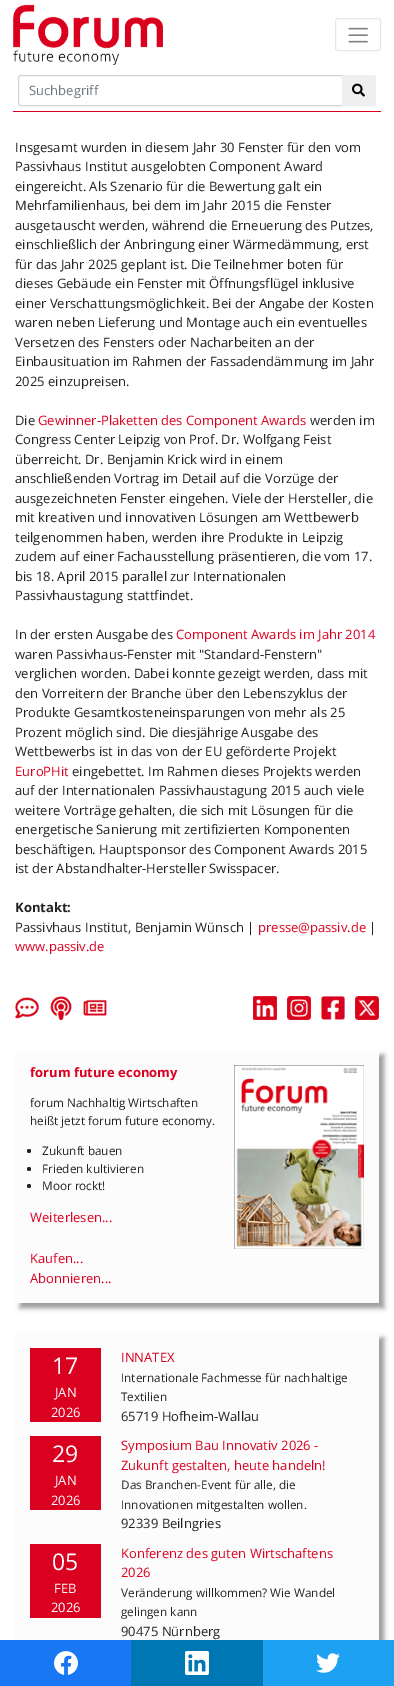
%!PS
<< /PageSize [394 1686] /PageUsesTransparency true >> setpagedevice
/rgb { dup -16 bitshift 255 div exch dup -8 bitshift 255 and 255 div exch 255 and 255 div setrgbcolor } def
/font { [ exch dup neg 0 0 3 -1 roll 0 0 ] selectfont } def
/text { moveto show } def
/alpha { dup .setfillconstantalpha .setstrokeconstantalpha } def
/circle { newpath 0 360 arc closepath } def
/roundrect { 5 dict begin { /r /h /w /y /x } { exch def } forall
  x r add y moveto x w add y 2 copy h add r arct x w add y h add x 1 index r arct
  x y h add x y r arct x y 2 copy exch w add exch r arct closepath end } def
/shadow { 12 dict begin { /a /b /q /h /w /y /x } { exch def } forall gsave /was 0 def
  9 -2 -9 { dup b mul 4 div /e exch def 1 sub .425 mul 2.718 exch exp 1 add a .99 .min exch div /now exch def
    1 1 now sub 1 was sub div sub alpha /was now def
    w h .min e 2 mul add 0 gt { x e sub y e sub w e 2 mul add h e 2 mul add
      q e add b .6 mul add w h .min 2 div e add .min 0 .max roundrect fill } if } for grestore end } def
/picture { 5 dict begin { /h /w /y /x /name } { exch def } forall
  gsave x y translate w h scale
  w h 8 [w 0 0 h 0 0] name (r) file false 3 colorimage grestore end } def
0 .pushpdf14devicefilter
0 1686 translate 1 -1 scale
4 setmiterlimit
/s1 { /OpenSans-Regular 13 font 16#6C757D rgb } def
/s2 { /OpenSans-Regular 13 font 16#222222 rgb } def
/s3 { /OpenSans-Regular 13 font 16#DA001F rgb } def
/s4 { /OpenSans-Bold 13 font 16#222222 rgb } def
/s5 { /OpenSans-Bold 13 font 16#DA001F rgb } def
/s6 { /OpenSans-Regular 11.75 font 16#222222 rgb } def
/s7 { /OpenSans-Regular 23 font 16#FFFFFF rgb } def
/s8 { /OpenSans-Regular 13 font 16#FFFFFF rgb } def
16#FFFFFF rgb
0 0 394 1686 rectfill
16#DA001F rgb
13 111 368 1 rectfill
(pic1.raw) 13 4 150 61 picture
16#E6E6E6 rgb
335.5 18.5 45 32 2.5 roundrect stroke
(pic2.raw) 348 27 20 16 picture
16#CED4DA rgb
21 75.5 moveto 342.5 75.5 lineto 342.5 105.5 lineto 21 105.5 lineto 19.5 105.5 18.5 104.5 18.5 103 curveto 18.5 78 lineto 18.5 76.5 19.5 75.5 21 75.5 curveto closepath stroke
s1
(Suchbegriff) 29 95 text
16#EFEFEF rgb
342 75 moveto 373 75 lineto 374.5 75 376 76.5 376 78 curveto 376 103 lineto 376 104.5 374.5 106 373 106 curveto 342 106 lineto closepath fill
(pic3.raw) 352 83 13 14 picture
s2
(Insgesamt wurden in diesem Jahr 30 Fenster für den vom) 15 152 text
(Passivhaus Institut ausgelobten Component Award) 15 171 text
(eingereicht. Als Szenario für die Bewertung galt ein) 15 191 text
(Mehrfamilienhaus, bei dem im Jahr 2015 die Fenster) 15 210 text
(ausgetauscht werden, während die Erneuerung des Putzes,) 15 230 text
(einschließlich der Anbringung einer Wärmedämmung, erst) 15 249 text
(für das Jahr 2025 geplant ist. Die Teilnehmer boten für) 15 269 text
(dieses Gebäude ein Fenster mit Öffnungsflügel inklusive) 15 288 text
(einer Verschattungsmöglichkeit. Bei der Angabe der Kosten) 15 308 text
(waren neben Lieferung und Montage auch ein eventuelles) 15 327 text
(Versetzen des Fensters oder Nacharbeiten an der) 15 347 text
(Einbausituation im Rahmen der Fassadendämmung im Jahr) 15 366 text
(2025 einzupreisen.) 15 386 text
(Die) 15 425 text
s3
(Gewinner-Plaketten des Component Awards) 38 425 text
s2
(werden im) 310 425 text
(Congress Center Leipzig von Prof. Dr. Wolfgang Feist) 15 444 text
(überreicht. Dr. Benjamin Krick wird in einem) 15 464 text
(anschließenden Vortrag im Detail auf die Vorzüge der) 15 483 text
(ausgezeichneten Fenster eingehen. Viele der Hersteller, die) 15 503 text
(mit kreativen und innovativen Lösungen am Wettbewerb) 15 522 text
(teilgenommen haben, werden ihre Produkte in Leipzig) 15 542 text
(zudem auf einer Fachausstellung präsentieren, die vom 17.) 15 561 text
(bis 18. April 2015 parallel zur Internationalen) 15 581 text
(Passivhaustagung stattfindet.) 15 600 text
(In der ersten Ausgabe des) 15 639 text
s3
(Component Awards im Jahr 2014) 176 639 text
s2
(waren Passivhaus-Fenster mit "Standard-Fenstern") 15 659 text
(verglichen worden. Dabei konnte gezeigt werden, dass mit) 15 678 text
(den Vorreitern der Branche über den Lebenszyklus der) 15 698 text
(Produkte Gesamtkosteneinsparungen von mehr als 25) 15 717 text
(Prozent möglich sind. Die diesjährige Ausgabe des) 15 737 text
(Wettbewerbs ist in das von der EU geförderte Projekt) 15 756 text
s3
(EuroPHit) 15 776 text
s2
(eingebettet. Im Rahmen dieses Projekts werden) 72 776 text
(auf der Internationalen Passivhaustagung 2015 auch viele) 15 795 text
(weitere Vorträge gehalten, die sich mit Lösungen für die) 15 815 text
(energetische Sanierung mit zertifizierten Komponenten) 15 834 text
(beschäftigen. Hauptsponsor des Component Awards 2015) 15 854 text
(ist der Abstandhalter-Hersteller Swisspacer.) 15 873 text
s4
(Kontakt:) 15 912 text
s2
(Passivhaus Institut, Benjamin Wünsch |) 15 932 text
s3
(presse@passiv.de) 258 932 text
s2
(|) 369 932 text
s3
(www.passiv.de) 15 951 text
(pic4.raw) 15 997 24 22 picture
(pic5.raw) 50 996 22 24 picture
(pic6.raw) 83 999 24 17 picture
(pic7.raw) 253 996 24 24 picture
(pic8.raw) 287 996 24 24 picture
(pic9.raw) 321 996 24 24 picture
(pic10.raw) 355 996 24 24 picture
16#999999 rgb
20 1055 364 253 0 2.5 1 shadow
16#FCFCFC rgb
15 1050 364 253 rectfill
s5
(forum future economy) 30 1077 text
(pic11.raw) 234 1065 130 184 picture
s6
(forum Nachhaltig Wirtschaften) 30 1107 text
(heißt jetzt forum future economy.) 30 1125 text
29 1151 2 circle fill
(Zukunft bauen) 42 1155 text
29 1169 2 circle fill
(Frieden kultivieren) 42 1173 text
29 1186 2 circle fill
(Moor rockt!) 42 1190 text
s3
(Weiterlesen...) 30 1222 text
(Kaufen...) 30 1263 text
(Abonnieren...) 30 1283 text
16#999999 rgb
20 1338 364 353 0 2.5 1 shadow
16#FCFCFC rgb
15 1333 364 307 rectfill
16#DA001F rgb
30 1348 71 74 rectfill
s7
(17) 52 1374 text
s8
(JAN) 55 1397 text
(2026) 51 1417 text
s3
(INNATEX) 121 1362 text
s6
(Internationale Fachmesse für nachhaltige) 121 1382 text
(Textilien) 121 1401 text
s2
(65719 Hofheim-Wallau) 121 1421 text
16#DA001F rgb
30 1436 71 74 rectfill
s7
(29) 52 1462 text
s8
(JAN) 55 1485 text
(2026) 51 1505 text
s3
(Symposium Bau Innovativ 2026 -) 121 1450 text
(Zukunft gestalten, heute handeln!) 121 1470 text
s6
(Das Branchen-Event für alle, die) 121 1489 text
(Innovationen mitgestalten wollen.) 121 1509 text
s2
(92339 Beilngries) 121 1528 text
16#DA001F rgb
30 1544 71 74 rectfill
s7
(05) 52 1570 text
s8
(FEB) 54 1593 text
(2026) 51 1612 text
s3
(Konferenz des guten Wirtschaftens) 121 1558 text
(2026) 121 1577 text
s6
(Veränderung willkommen? Wie Wandel) 121 1597 text
(gelingen kann) 121 1616 text
s2
(90475 Nürnberg) 121 1636 text
16#1877F2 rgb
0 1640 131 46 rectfill
(pic12.raw) 54 1651 24 24 picture
16#0077B5 rgb
131 1640 132 46 rectfill
(pic13.raw) 185 1651 24 24 picture
16#1DA1F2 rgb
263 1640 131 46 rectfill
(pic14.raw) 316 1653 24 20 picture
.poppdf14devicefilter showpage
